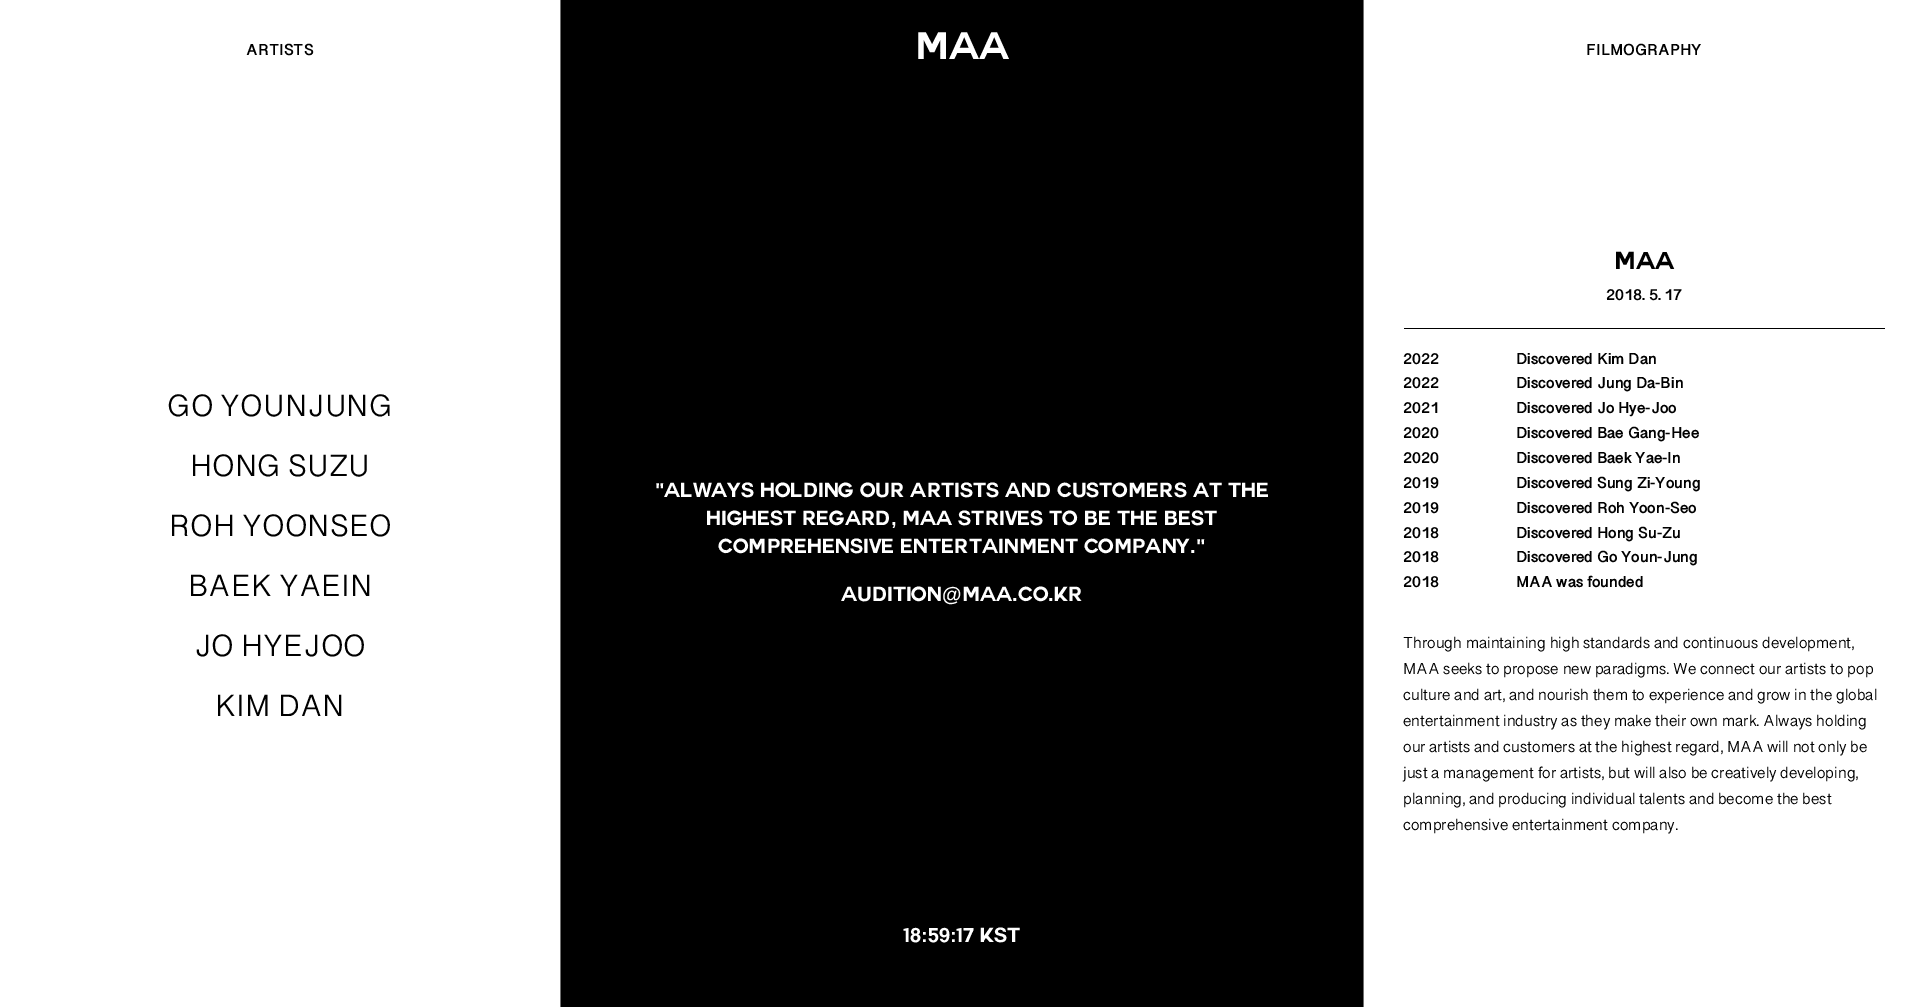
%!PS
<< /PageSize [1923 1007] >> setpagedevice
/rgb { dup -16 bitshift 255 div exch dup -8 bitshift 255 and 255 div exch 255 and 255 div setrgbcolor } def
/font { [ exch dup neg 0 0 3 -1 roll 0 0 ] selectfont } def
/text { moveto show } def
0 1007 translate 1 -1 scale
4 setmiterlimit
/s1 { /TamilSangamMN-Bold 16.25 font 16#000000 rgb } def
/s2 { /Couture-Bold 37.5 font 16#FFFFFF rgb } def
/s3 { /TamilSangamMN-Regular 31.25 font 16#000000 rgb } def
/s4 { /LiberationSans-Bold 20 font 16#FFFFFF rgb } def
/s5 { /Couture-Bold 20 font 16#FFFFFF rgb } def
/s6 { /Couture-Bold 24 font 16#000000 rgb } def
/s7 { /TamilSangamMN-Regular 16.25 font 16#000000 rgb } def
16#FFFFFF rgb
0 0 1923 1007 rectfill
16#707070 rgb
560 0 1 1007 rectfill
s1
(ARTISTS) 246 55 text
561 0 802 1007 rectfill
s2
(MAA) 915 59 text
s3
(GO YOUNJUNG) 167 416 text
(HONG SUZU) 190 476 text
(ROH YOONSEO) 169 536 text
(BAEK YAEIN) 188 596 text
(JO HYEJOO) 194 656 text
(KIM DAN) 215 716 text
16#707070 rgb
1363 0 1 1007 rectfill
s1
(FILMOGRAPHY) 1586 55 text
s4
(") 655 497 text
s5
(Always holding our artists and customers at the) 664 497 text
(highest regard) 706 525 text
s4
(,) 891 525 text
s5
(MAA strives to be the best) 902 525 text
(comprehensive entertainment company) 718 553 text
s4
(.") 1190 553 text
s5
(audition) 841 601 text
s4
(@) 942 601 text
s5
(maa) 962 601 text
s4
(.) 1012 601 text
s5
(co) 1018 601 text
s4
(.) 1048 601 text
s5
(kr) 1054 601 text
(18) 903 942 text
s4
(:) 921 942 text
s5
(59) 928 942 text
s4
(:) 950 942 text
s5
(17 KST) 956 942 text
16#000000 rgb
1404 328 481 1 rectfill
s6
(MAA) 1614 269 text
s1
(2018. 5. 17) 1606 300 text
(2022) 1403 364 text
(Discovered Kim Dan) 1516 364 text
(2022) 1403 388 text
(Discovered Jung Da-Bin) 1516 388 text
(2021) 1403 413 text
(Discovered Jo Hye-Joo) 1516 413 text
(2020) 1403 438 text
(Discovered Bae Gang-Hee) 1516 438 text
(2020) 1403 463 text
(Discovered Baek Yae-In) 1516 463 text
(2019) 1403 488 text
(Discovered Sung Zi-Young) 1516 488 text
(2019) 1403 513 text
(Discovered Roh Yoon-Seo) 1516 513 text
(2018) 1403 538 text
(Discovered Hong Su-Zu) 1516 538 text
(2018) 1403 562 text
(Discovered Go Youn-Jung) 1516 562 text
(2018) 1403 587 text
(MAA was founded) 1516 587 text
s7
(Through maintaining high standards and continuous development,) 1403 648 text
(MAA seeks to propose new paradigms. We connect our artists to pop) 1403 674 text
(culture and art, and nourish them to experience and grow in the global) 1403 700 text
(entertainment industry as they make their own mark. Always holding) 1403 726 text
(our artists and customers at the highest regard, MAA will not only be) 1403 752 text
(just a management for artists, but will also be creatively developing,) 1403 778 text
(planning, and producing individual talents and become the best) 1403 804 text
(comprehensive entertainment company.) 1403 830 text
showpage
